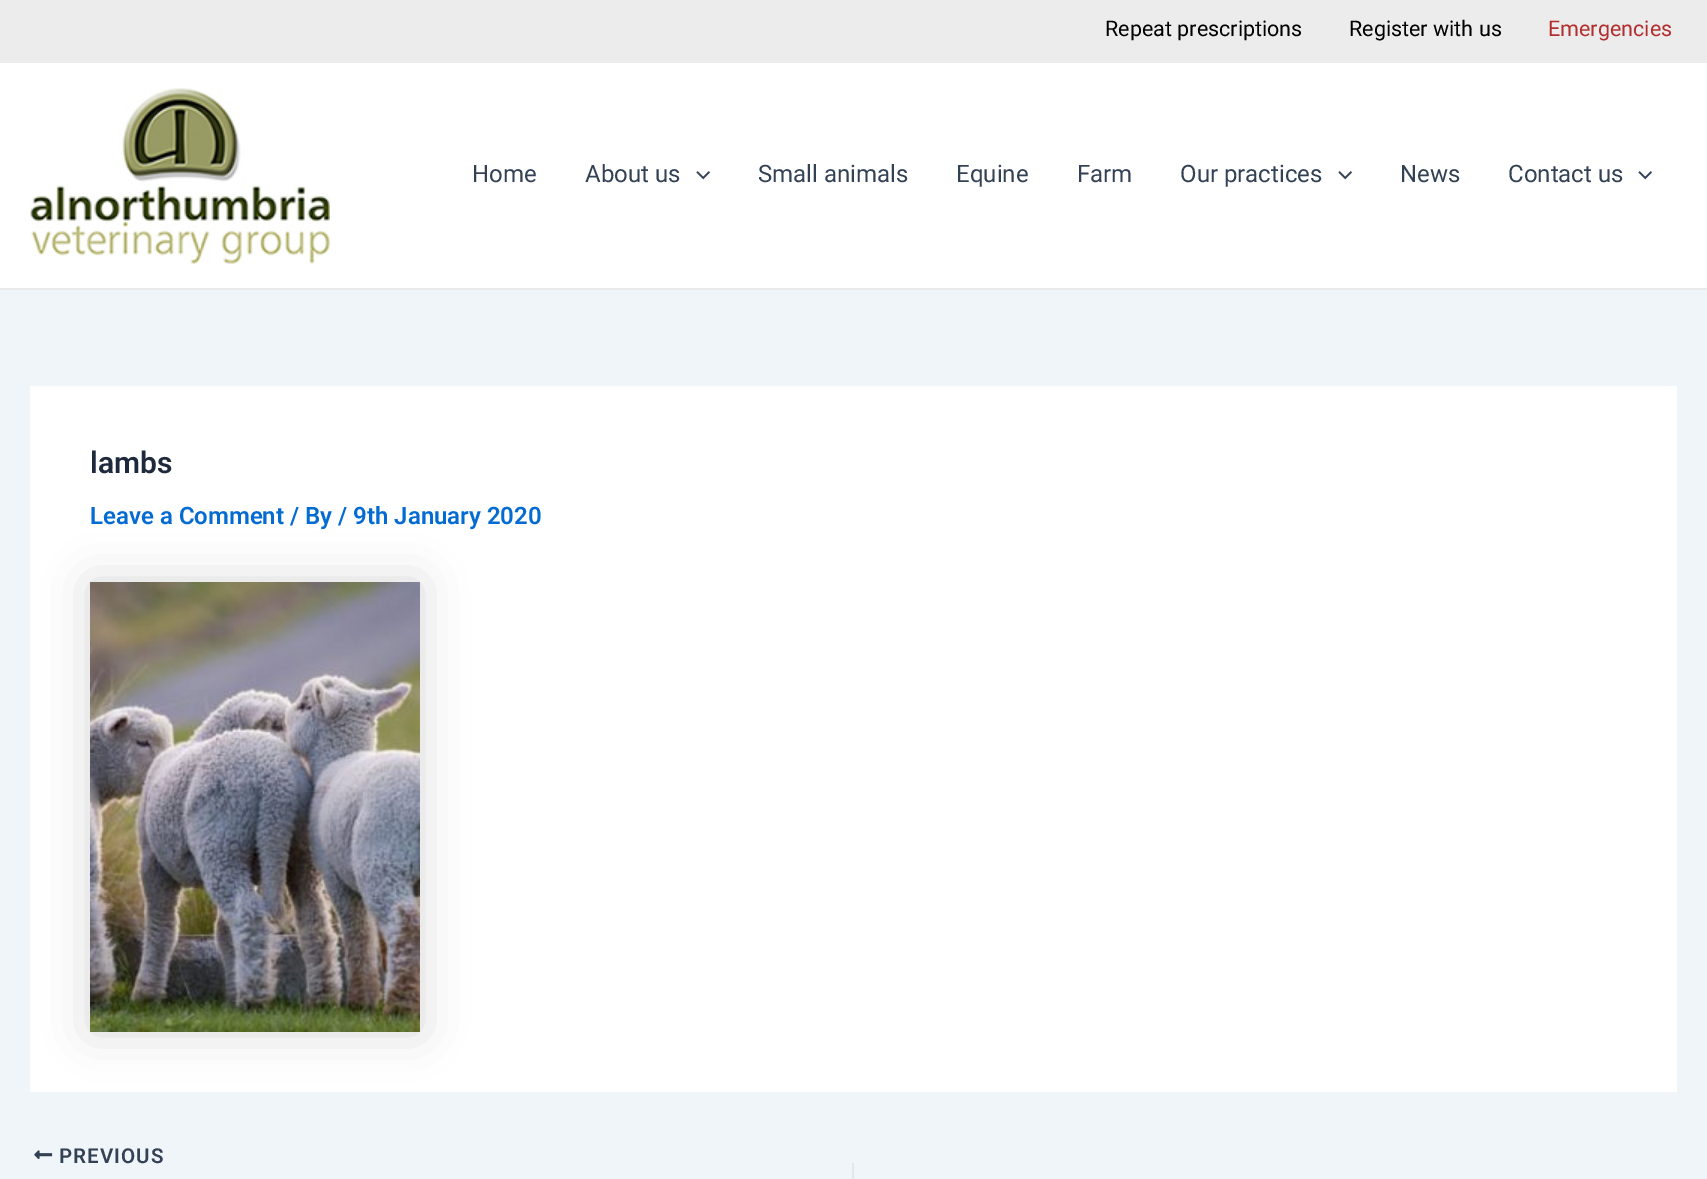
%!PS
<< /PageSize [1707 1179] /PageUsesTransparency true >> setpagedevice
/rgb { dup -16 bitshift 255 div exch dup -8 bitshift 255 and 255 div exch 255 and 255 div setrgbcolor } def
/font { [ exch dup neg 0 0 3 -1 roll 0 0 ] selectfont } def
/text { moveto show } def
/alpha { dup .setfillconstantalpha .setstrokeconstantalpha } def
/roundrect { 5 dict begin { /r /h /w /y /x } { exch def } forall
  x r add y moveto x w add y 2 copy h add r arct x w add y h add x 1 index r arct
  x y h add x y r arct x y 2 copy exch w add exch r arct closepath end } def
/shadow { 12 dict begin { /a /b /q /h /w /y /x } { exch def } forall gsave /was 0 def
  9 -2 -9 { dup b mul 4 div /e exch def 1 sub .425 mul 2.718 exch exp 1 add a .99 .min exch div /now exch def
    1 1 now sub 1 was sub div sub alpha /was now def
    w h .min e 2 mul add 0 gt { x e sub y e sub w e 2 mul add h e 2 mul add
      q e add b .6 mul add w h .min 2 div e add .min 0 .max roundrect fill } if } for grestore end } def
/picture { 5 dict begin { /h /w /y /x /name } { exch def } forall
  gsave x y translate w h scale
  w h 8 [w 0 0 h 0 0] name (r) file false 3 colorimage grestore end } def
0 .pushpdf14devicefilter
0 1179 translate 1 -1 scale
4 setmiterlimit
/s1 { /Roboto-Regular 21.5 font 16#000000 rgb } def
/s2 { /Roboto-Regular 21.5 font 16#B22E2E rgb } def
/s3 { /Roboto-Regular 24 font 16#334155 rgb } def
/s4 { /Roboto-SemiBold 30 font 16#1E293B rgb } def
/s5 { /Roboto-SemiBold 24 font 16#046BD2 rgb } def
16#F0F5FA rgb
0 0 1707 1179 rectfill
16#ECECEC rgb
0 0 1707 63 rectfill
s1
(Repeat prescriptions) 1105 36 text
(Register with us) 1349 36 text
s2
(Emergencies) 1548 36 text
16#FFFFFF rgb
0 63 1707 225 rectfill
16#EAEAEA rgb
0 288 1707 2 rectfill
(pic1.raw) 30 88 300 176 picture
s3
(Home) 472 182 text
(About us) 585 182 text
(pic2.raw) 696 171 14 9 picture
(Small animals) 758 182 text
(Equine) 956 182 text
(Farm) 1077 182 text
(Our practices) 1180 182 text
(pic2.raw) 1338 171 14 9 picture
(News) 1400 182 text
(Contact us) 1508 182 text
(pic2.raw) 1638 171 14 9 picture
16#FFFFFF rgb
30 386 1647 706 rectfill
s4
(lambs) 90 473 text
s5
(Leave a Comment / By / 9th January 2020) 90 524 text
16#000000 rgb
90 582 330 450 0 22.5 0.15 shadow
(pic3.raw) 90 582 330 450 picture
(pic4.raw) 34 1150 19 9 picture
/Roboto-SemiBold 20.5 font
16#334155 rgb
59 1163 moveto 1 0 (PREVIOUS) ashow
16#E1E8ED rgb
852 1163 2 16 rectfill
.poppdf14devicefilter showpage
